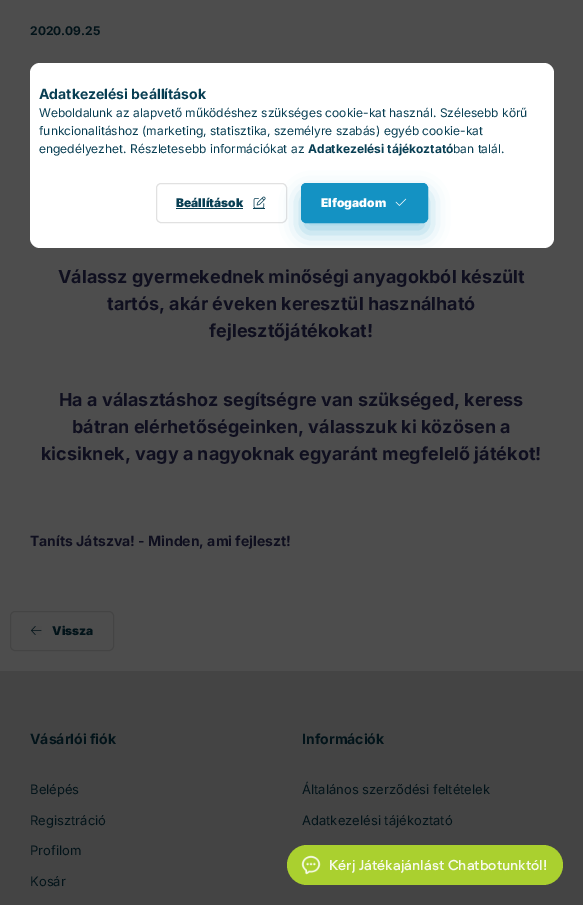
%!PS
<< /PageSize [583 905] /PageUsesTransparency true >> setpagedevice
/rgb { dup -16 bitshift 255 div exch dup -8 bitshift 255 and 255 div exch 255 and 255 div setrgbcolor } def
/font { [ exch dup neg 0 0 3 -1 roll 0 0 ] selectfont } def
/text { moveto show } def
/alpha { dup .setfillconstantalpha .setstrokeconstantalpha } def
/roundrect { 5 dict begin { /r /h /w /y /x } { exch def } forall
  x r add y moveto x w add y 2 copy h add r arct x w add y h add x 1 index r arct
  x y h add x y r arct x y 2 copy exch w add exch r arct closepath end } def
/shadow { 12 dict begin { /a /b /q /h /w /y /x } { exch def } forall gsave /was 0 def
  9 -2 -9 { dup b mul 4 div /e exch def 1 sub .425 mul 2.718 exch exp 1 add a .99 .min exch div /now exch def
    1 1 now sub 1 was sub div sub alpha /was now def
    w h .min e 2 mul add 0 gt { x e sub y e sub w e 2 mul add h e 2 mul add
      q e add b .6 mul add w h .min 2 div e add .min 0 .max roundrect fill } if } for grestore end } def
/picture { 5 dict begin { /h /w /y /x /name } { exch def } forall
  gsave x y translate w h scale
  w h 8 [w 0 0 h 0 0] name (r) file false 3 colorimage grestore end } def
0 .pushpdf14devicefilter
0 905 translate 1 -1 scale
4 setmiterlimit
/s1 { /Inter-Bold 12 font 16#021319 rgb } def
/s2 { /Inter-Bold 18 font 16#0F0F1F rgb } def
/s3 { /Inter-Bold 14 font 16#0F0F1F rgb } def
/s4 { /Inter-Black 12 font 16#021319 rgb } def
/s5 { /Inter-Bold 14 font 16#021319 rgb } def
/s6 { /Inter-Regular 13 font 16#021319 rgb } def
/s7 { /Inter-Bold 14 font 16#083E53 rgb } def
/s8 { /Inter-Regular 12 font 16#083E53 rgb } def
/s9 { /Inter-Bold 12 font 16#083E53 rgb } def
/s10 { /Inter-Black 12 font 16#083E53 rgb } def
/s11 { /Inter-Black 12 font 16#FFFFFF rgb } def
/s12 { /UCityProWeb-SemiBold 14 font 16#F6FAEA rgb } def
16#4D4D4D rgb
0 0 583 905 rectfill
s1
(2020.09.25) 30 35 text
s2
(Válassz gyermekednek minőségi anyagokból készült) 58 283 text
(tartós, akár éveken keresztül használható) 107 310 text
(fejlesztőjátékokat!) 209 337 text
(Ha a választáshoz segítségre van szükséged, keress) 59 406 text
(bátran elérhetőségeinken, válasszuk ki közösen a) 72 433 text
(kicsiknek, vagy a nagyoknak egyaránt megfelelő játékot!) 41 460 text
s3
(Taníts Játszva! - Minden, ami fejleszt!) 30 546 text
16#444444 rgb
10.5 611.5 103 39 4.5 roundrect stroke
(pic1.raw) 31 626 11 9 picture
s4
(Vissza) 52 635 text
16#444444 rgb
0 671 583 234 rectfill
s5
(Vásárlói fiók) 30 744 text
s6
(Belépés) 30 794 text
(Regisztráció) 30 825 text
(Profilom) 30 855 text
(Kosár) 30 886 text
s5
(Információk) 302 744 text
s6
(Általános szerződési feltételek) 302 794 text
(Adatkezelési tájékoztató) 302 825 text
16#FFFFFF rgb
30 63 524 185 10 roundrect fill
s7
(Adatkezelési beállítások) 39 99 text
s8
(Weboldalunk az alapvető működéshez szükséges cookie-kat használ. Szélesebb körű) 39 117 text
(funkcionalitáshoz \(marketing, statisztika, személyre szabás\) egyéb cookie-kat) 39 135 text
(engedélyezhet. Részletesebb információkat az) 39 153 text
s9
(Adatkezelési tájékoztató) 308 153 text
s8
(ban talál.) 453 153 text
16#E1E1E1 rgb
156.5 183.5 130 39 4.5 roundrect stroke
s10
(Beállítások) 176 207 text
176 208 67 1 rectfill
(pic2.raw) 253 196 13 12 picture
253 208 12 1 rectfill
gsave
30 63 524 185 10 roundrect clip newpath
16#1492C3 rgb
301 193 127 40 5 10 0.4 shadow
grestore
16#1492C3 rgb
301.5 183.5 126 39 4.5 roundrect gsave fill grestore
stroke
s11
(Elfogadom) 321 207 text
(pic3.raw) 395 198 12 8 picture
16#AAD02F rgb
287 845 276 40 20 roundrect fill
(pic4.raw) 301 855 20 20 picture
s12
(Kérj Játékajánlást Chatbotunktól!) 329 870 text
.poppdf14devicefilter showpage
